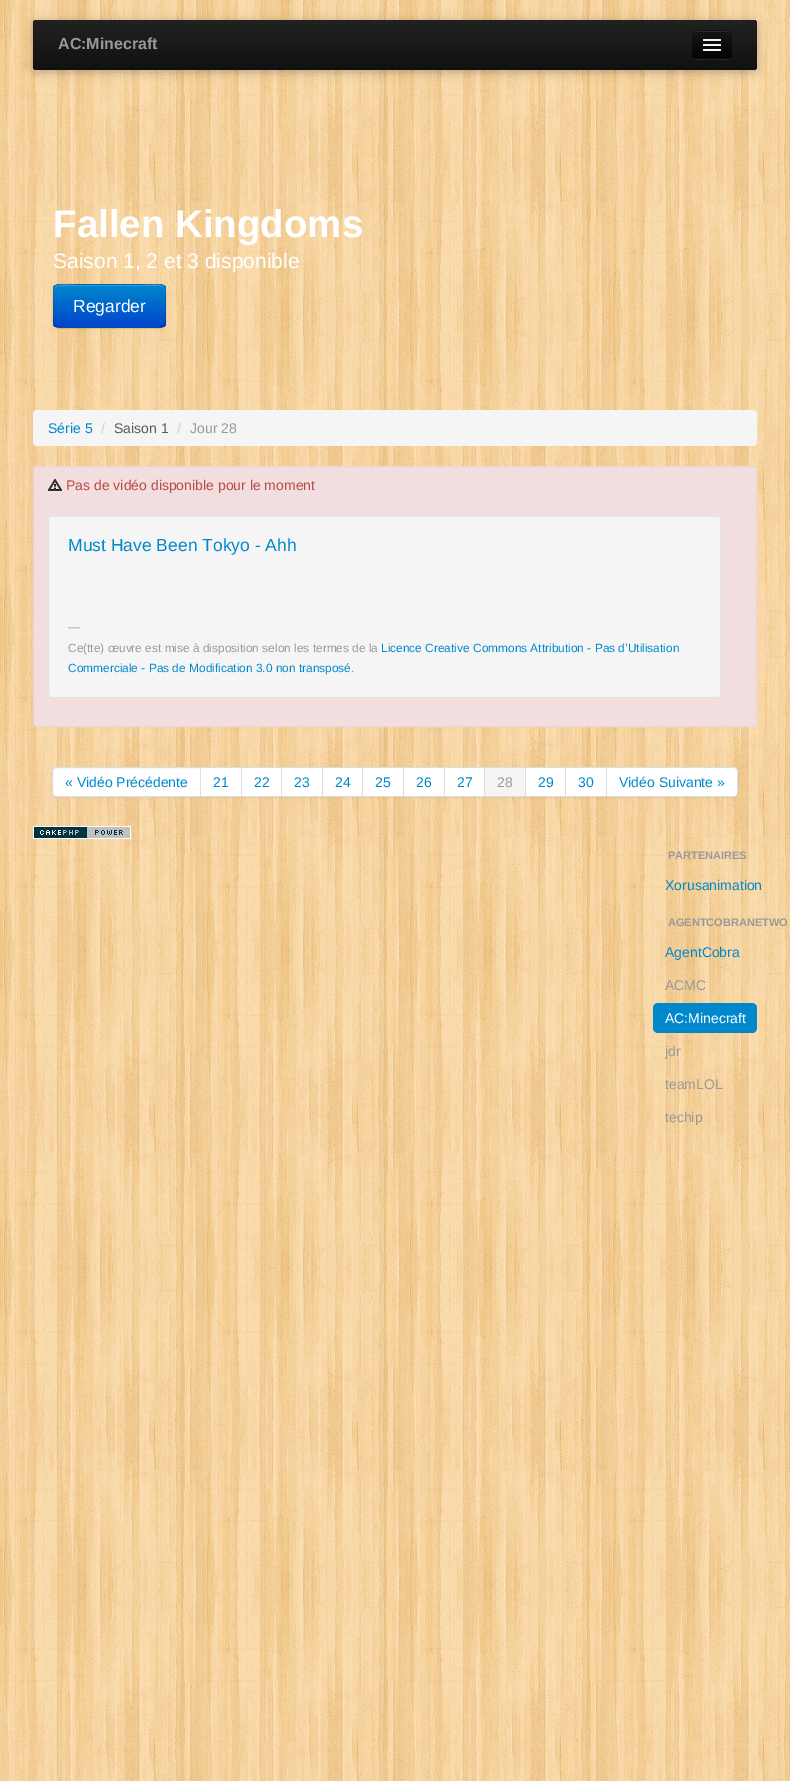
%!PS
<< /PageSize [790 1781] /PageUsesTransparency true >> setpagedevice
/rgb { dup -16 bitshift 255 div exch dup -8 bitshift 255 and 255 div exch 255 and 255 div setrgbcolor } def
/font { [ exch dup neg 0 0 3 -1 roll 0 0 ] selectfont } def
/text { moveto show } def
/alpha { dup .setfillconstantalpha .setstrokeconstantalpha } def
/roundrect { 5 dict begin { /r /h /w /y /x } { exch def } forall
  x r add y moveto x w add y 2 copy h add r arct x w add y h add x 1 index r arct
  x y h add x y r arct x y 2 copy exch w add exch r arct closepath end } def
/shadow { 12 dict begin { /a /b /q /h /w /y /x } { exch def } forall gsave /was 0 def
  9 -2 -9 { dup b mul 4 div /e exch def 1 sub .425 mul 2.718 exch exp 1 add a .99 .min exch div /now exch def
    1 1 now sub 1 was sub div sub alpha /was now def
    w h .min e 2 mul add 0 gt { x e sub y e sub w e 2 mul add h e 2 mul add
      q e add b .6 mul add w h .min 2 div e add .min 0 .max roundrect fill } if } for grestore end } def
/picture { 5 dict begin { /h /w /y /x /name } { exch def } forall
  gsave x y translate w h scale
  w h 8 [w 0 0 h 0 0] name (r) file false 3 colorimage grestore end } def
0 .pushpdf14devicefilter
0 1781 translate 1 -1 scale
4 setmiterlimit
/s1 { /LiberationSans-Bold 16 font 16#999999 rgb } def
/s2 { /LiberationSans-Bold 38.5 font 16#FFFFFF rgb } def
/s3 { /LiberationSans-Regular 21 font 16#FFFFFF rgb } def
/s4 { /LiberationSans-Regular 17.5 font 16#FFFFFF rgb } def
/s5 { /LiberationSans-Regular 14 font 16#0088CC rgb } def
/s6 { /LiberationSans-Regular 14 font 16#CCCCCC rgb } def
/s7 { /LiberationSans-Regular 14 font 16#5A5A5A rgb } def
/s8 { /LiberationSans-Regular 14 font 16#999999 rgb } def
/s9 { /LiberationSans-Regular 14 font 16#B94A48 rgb } def
/s10 { /LiberationSans-Regular 17.5 font 16#0088CC rgb } def
/s11 { /LiberationSans-Regular 11.9 font 16#999999 rgb } def
/s12 { /LiberationSans-Regular 11.9 font 16#0088CC rgb } def
/s13 { /LiberationSans-Bold 11 font 16#999999 rgb } def
/s14 { /LiberationSans-Regular 14 font 16#FFFFFF rgb } def
16#FFFFFF rgb
0 0 790 1781 rectfill
(pic1.raw) 0 0 790 1781 picture
16#000000 rgb
33 22 724 50 4 5 0.25 shadow
gsave 33 20 724 50 4 roundrect clip newpath
<< /ShadingType 2 /ColorSpace /DeviceRGB /Coords [395 20 395 70] /Extend [true true] /Function << /FunctionType 2 /Domain [0 1] /C0 [0.133 0.133 0.133] /C1 [0.067 0.067 0.067] /N 1 >> >> shfill grestore
s1
(AC:Minecraft) 58 49 text
16#272727 rgb
692 55 moveto 692 61 697 60 701 60 curveto 723 60 lineto 727 60 732 61 732 55 curveto 732 57 730 59 728 59 curveto 696 59 lineto 694 59 692 57 692 55 curveto closepath fill
16#0E0E0E rgb
692 30 40 29 4 roundrect fill
gsave
692 30 40 29 4 roundrect clip newpath
gsave 692 31 moveto 732 31 lineto 732 58 lineto 692 58 lineto closepath clip newpath
<< /ShadingType 2 /ColorSpace /DeviceRGB /Coords [712 31 712 58] /Extend [true true] /Function << /FunctionType 2 /Domain [0 1] /C0 [0.082 0.082 0.082] /C1 [0.016 0.016 0.016] /N 1 >> >> shfill grestore
grestore
16#2C2C2C rgb
696 32 moveto 728 32 lineto 730 32 731 33 731 35 curveto 731 30 727 31 722.5 31 curveto 701.5 31 lineto 697 31 693 30 693 35 curveto 693 33 694 32 696 32 curveto closepath fill
0.25 alpha
16#000000 rgb
730.5 57.5 moveto 730 58 729 58.5 728 58.5 curveto 696 58.5 lineto 695 58.5 694 58 693.5 57.5 curveto stroke
1 alpha
16#0B0B0B rgb
703 40.5 moveto 702 42.5 706.5 42 706.5 42 curveto 717.5 42 lineto 717.5 42 722 42.5 721 40.5 curveto 720 41.5 713.5 41 712 41 curveto 710.5 41 704 41.5 703 40.5 curveto closepath fill
16#F5F5F5 rgb
703 39 18 2 1 roundrect fill
16#080808 rgb
703 45.5 moveto 702 47.5 706.5 47 706.5 47 curveto 717.5 47 lineto 717.5 47 722 47.5 721 45.5 curveto 720 46.5 713.5 46 712 46 curveto 710.5 46 704 46.5 703 45.5 curveto closepath fill
16#F5F5F5 rgb
703 44 18 2 1 roundrect fill
703 49 18 2 1 roundrect fill
s2
(Fallen Kingdoms) 53 237 text
s3
(Saison 1, 2 et 3 disponible) 53 268 text
16#000000 rgb
53 285 113 44 6 1 0.05 shadow
16#006DCC rgb
53 284 113 44 6 roundrect fill
gsave
53 284 113 44 6 roundrect clip newpath
gsave 53 285 moveto 166 285 lineto 166 327 lineto 53 327 lineto closepath clip newpath
<< /ShadingType 2 /ColorSpace /DeviceRGB /Coords [110 285 110 327] /Extend [true true] /Function << /FunctionType 2 /Domain [0 1] /C0 [0 0.533 0.8] /C1 [0 0.267 0.8] /N 1 >> >> shfill grestore
grestore
0.2 alpha
16#FFFFFF rgb
59 286 moveto 160 286 lineto 163 286 165 288 165 291 curveto 165 281 148 285 143 285 curveto 76 285 lineto 71 285 54 281 54 291 curveto 54 288 56 286 59 286 curveto closepath fill
0.25 alpha
16#000000 rgb
164 326 moveto 160.5 327.5 lineto 58.5 327.5 lineto 55 326 lineto stroke
0.1 alpha
55 326 moveto 52.5 323.5 53.5 319.5 53.5 316.5 curveto 53.5 306 lineto 53.5 281.5 50.5 284.5 76 284.5 curveto 143 284.5 lineto 168.5 284.5 165.5 281.5 165.5 306 curveto 165.5 316.5 lineto 165.5 319.5 166.5 323.5 164 326 curveto stroke
1 alpha
s4
(Regarder) 73 312 text
16#F5F5F5 rgb
33 410 724 36 4 roundrect fill
s5
(Série 5) 48 433 text
s6
(/) 101 433 text
s7
(Saison 1) 114 433 text
s6
(/) 177 433 text
s8
(Jour 28) 190 433 text
16#F2DEDE rgb
33.5 466.5 723 260 3.5 roundrect gsave fill grestore
16#EED3D7 rgb
stroke
(pic2.raw) 48 479 14 13 picture
s9
(Pas de vidéo disponible pour le moment) 66 490 text
16#F5F5F5 rgb
48 515 673 183 4 roundrect fill
16#E9E9E9 rgb
52 517 moveto 717 517 lineto 719 517 720 518 720 520 curveto 720 519 lineto 720 517 719 516 717 516 curveto 52 516 lineto 50 516 49 517 49 519 curveto 49 520 lineto 49 518 50 517 52 517 curveto closepath fill
16#E3E3E3 rgb
48.5 515.5 672 182 3.5 roundrect stroke
s10
(Must Have Been Tokyo - Ahh) 68 551 text
s11
(—) 68 631 text
(Ce\(tte\) œuvre est mise à disposition selon les termes de la) 68 652 text
s12
(Licence Creative Commons Attribution - Pas d’Utilisation) 381 652 text
(Commerciale - Pas de Modification 3.0 non transposé) 68 672 text
s11
(.) 351 672 text
16#000000 rgb
52 768 686 30 4 1 0.05 shadow
16#FFFFFF rgb
56 767.5 moveto 200.5 767.5 lineto 200.5 796.5 lineto 56 796.5 lineto 54 796.5 52.5 795 52.5 793 curveto 52.5 771 lineto 52.5 769 54 767.5 56 767.5 curveto closepath gsave fill grestore
16#DDDDDD rgb
stroke
s5
(« Vidéo Précédente) 65 787 text
16#FFFFFF rgb
201 768 40 28 rectfill
16#DDDDDD rgb
201 767 406 1 rectfill
241 767 1 30 rectfill
201 796 41 1 rectfill
s5
(21) 213 787 text
16#FFFFFF rgb
242 768 39 28 rectfill
16#DDDDDD rgb
281 767 1 30 rectfill
242 796 40 1 rectfill
s5
(22) 254 787 text
16#FFFFFF rgb
282 768 40 28 rectfill
16#DDDDDD rgb
322 767 1 30 rectfill
282 796 41 1 rectfill
s5
(23) 294 787 text
16#FFFFFF rgb
323 768 39 28 rectfill
16#DDDDDD rgb
362 767 1 30 rectfill
323 796 40 1 rectfill
s5
(24) 335 787 text
16#FFFFFF rgb
363 768 40 28 rectfill
16#DDDDDD rgb
403 767 1 30 rectfill
363 796 41 1 rectfill
s5
(25) 375 787 text
16#FFFFFF rgb
404 768 40 28 rectfill
16#DDDDDD rgb
444 767 1 30 rectfill
404 796 41 1 rectfill
s5
(26) 416 787 text
16#FFFFFF rgb
445 768 39 28 rectfill
16#DDDDDD rgb
484 767 1 30 rectfill
445 796 40 1 rectfill
s5
(27) 457 787 text
16#F5F5F5 rgb
485 768 40 28 rectfill
16#DDDDDD rgb
525 767 1 30 rectfill
485 796 41 1 rectfill
s8
(28) 497 787 text
16#FFFFFF rgb
526 768 39 28 rectfill
16#DDDDDD rgb
565 767 1 30 rectfill
526 796 40 1 rectfill
s5
(29) 538 787 text
16#FFFFFF rgb
566 768 40 28 rectfill
16#DDDDDD rgb
606 767 1 30 rectfill
566 796 41 1 rectfill
s5
(30) 578 787 text
16#FFFFFF rgb
607 768 moveto 734 768 lineto 735.5 768 737 769.5 737 771 curveto 737 793 lineto 737 794.5 735.5 796 734 796 curveto 607 796 lineto closepath fill
16#DDDDDD rgb
607 767 moveto 734 767 lineto 736 767 738 769 738 771 curveto 738 793 lineto 738 795 736 797 734 797 curveto 607 797 lineto closepath 607 768 moveto 734 768 lineto 736 768 737 769 737 771 curveto 737 793 lineto 737 795 736 796 734 796 curveto 607 796 lineto closepath eofill
s5
(Vidéo Suivante ») 619 787 text
(pic3.raw) 33 826 98 13 picture
s13
(PARTENAIRES) 668 859 text
s5
(Xorusanimation) 665 890 text
s13
(AGENTCOBRANETWO) 668 926 text
s5
(AgentCobra) 665 957 text
s8
(ACMC) 665 990 text
16#0088CC rgb
653 1003 104 30 5 roundrect fill
s14
(AC:Minecraft) 665 1023 text
s8
(jdr) 665 1056 text
(teamLOL) 665 1089 text
(techip) 665 1122 text
.poppdf14devicefilter showpage
